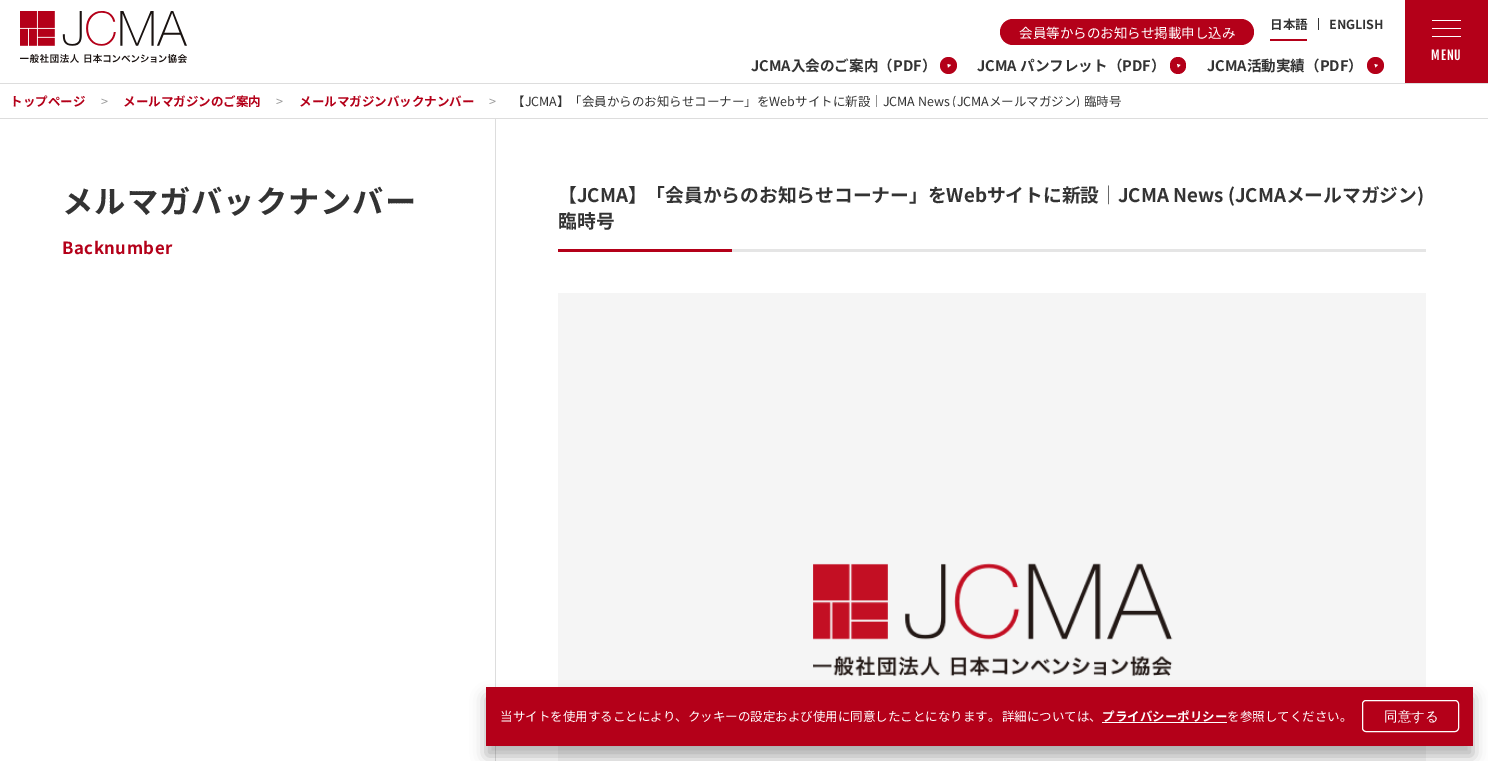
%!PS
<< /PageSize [1488 761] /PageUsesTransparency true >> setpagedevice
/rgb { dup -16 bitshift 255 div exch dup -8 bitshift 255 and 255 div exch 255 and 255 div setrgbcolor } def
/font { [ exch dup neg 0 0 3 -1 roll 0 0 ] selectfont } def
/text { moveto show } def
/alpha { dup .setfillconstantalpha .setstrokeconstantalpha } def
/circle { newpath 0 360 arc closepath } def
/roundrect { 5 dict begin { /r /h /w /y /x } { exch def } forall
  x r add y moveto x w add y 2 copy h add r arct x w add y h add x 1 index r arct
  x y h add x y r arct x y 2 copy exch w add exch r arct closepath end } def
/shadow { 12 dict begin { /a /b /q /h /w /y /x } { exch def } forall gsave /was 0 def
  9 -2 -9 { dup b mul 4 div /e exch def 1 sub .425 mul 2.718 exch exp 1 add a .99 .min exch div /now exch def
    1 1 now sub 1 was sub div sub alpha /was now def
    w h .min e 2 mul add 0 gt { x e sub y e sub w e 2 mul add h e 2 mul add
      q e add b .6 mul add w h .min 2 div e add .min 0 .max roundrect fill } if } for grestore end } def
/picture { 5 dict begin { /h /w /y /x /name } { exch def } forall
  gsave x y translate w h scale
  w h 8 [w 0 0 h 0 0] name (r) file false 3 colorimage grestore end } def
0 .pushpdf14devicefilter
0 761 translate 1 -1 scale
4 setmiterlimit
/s1 { /NotoSansJP-Bold 12.5 font 16#333333 rgb } def
/s2 { /NotoSansJP-Regular 13.5 font 16#FFFFFF rgb } def
/s3 { /NotoSansJP-Bold 14.6 font 16#333333 rgb } def
/s4 { /NotoSansJP-Bold 12.5 font 16#B40019 rgb } def
/s5 { /NotoSansJP-Regular 12.5 font 16#999999 rgb } def
/s6 { /NotoSansJP-Regular 12.5 font 16#333333 rgb } def
/s7 { /NotoSansJP-Bold 18.75 font 16#333333 rgb } def
/s8 { /NotoSansJP-Bold 12.5 font 16#FFFFFF rgb } def
/s9 { /NotoSansJP-Regular 12.5 font 16#FFFFFF rgb } def
/s10 { /WenQuanYiZenHei-Medium 13.5 font 16#FFFFFF rgb } def
16#FFFFFF rgb
0 0 1488 761 rectfill
(pic1.raw) 20 11 167 52 picture
s1
(日本語) 1270 29 text
16#B40019 rgb
1270 39 37 2 rectfill
16#333333 rgb
1318 18 1 12 rectfill
(ENGLISH) 1329 29 text
16#B40019 rgb
1000 19 254 26 13 roundrect fill
s2
(会員等からのお知らせ掲載申し込み) 1019 38 text
s3
(JCMA入会のご案内（PDF）) 751 71 text
16#B40019 rgb
948.5 65.5 8.5 circle fill
16#FFFFFF rgb
951 65 moveto 948 67.5 lineto 947.5 64 lineto closepath fill
s3
(JCMA パンフレット（PDF）) 977 71 text
16#B40019 rgb
1170 57 16 17 8 roundrect fill
16#FFFFFF rgb
1180.5 65 moveto 1178 67.5 lineto 1177 64 lineto closepath fill
s3
(JCMA活動実績（PDF）) 1207 71 text
16#B40019 rgb
1375.5 65.5 8.5 circle fill
16#FFFFFF rgb
1378 65 moveto 1375.5 67.5 lineto 1374.5 64 lineto closepath fill
16#B40019 rgb
1405 0 83 83 rectfill
16#FFFFFF rgb
1432 28 29 1 rectfill
1432 20 29 1 rectfill
1432 36 29 1 rectfill
/FjallaOne-Regular 12.5 font
1431 60 moveto 1 0 (MENU) ashow
16#DDDDDD rgb
0 83 1488 1 rectfill
0 118 1488 1 rectfill
s4
(トップページ) 10 106 text
s5
(>) 101 106 text
gsave
10 95 1468 12 rectclip
s4
(メールマガジンのご案内) 123 106 text
grestore
(>) 276 106 text
s4
(メールマガジンバックナンバー) 299 106 text
s5
(>) 489 106 text
gsave
10 95 1468 12 rectclip
s6
(【JCMA】「会員からのお知らせコーナー」をWebサイトに新設｜JCMA News \(JCMAメールマガジン\) 臨時号) 512 106 text
grestore
16#DDDDDD rgb
495 119 1 642 rectfill
/NotoSansJP-Bold 31.25 font
16#333333 rgb
62 213 moveto 1 0 (メルマガバックナンバー) ashow
/NotoSansJP-Bold 16.75 font
16#B40019 rgb
62 254 moveto 0.5 0 (Backnumber) ashow
16#E5E5E5 rgb
732 249 694 3 rectfill
s7
(【JCMA】「会員からのお知らせコーナー」をWebサイトに新設｜JCMA News \(JCMAメールマガジン\)) 558 202 text
(臨時号) 558 228 text
16#B40019 rgb
558 249 174 3 rectfill
(pic2.raw) 558 293 868 468 picture
16#000000 rgb
486 697 987 59 0 7.5 0.3 shadow
16#B40019 rgb
486 687 987 59 rectfill
/NotoSansJP-Regular 12.5 font
16#FFFFFF rgb
500 721 moveto -1 0 32 (当サイトを使用することにより、クッキーの設定および使用に同意したことになります。 詳細については、) widthshow
s8
(プライバシーポリシー) 1102 721 text
1102 722 125 1 rectfill
s9
(を参照してください。) 1227 721 text
1362.5 700.5 96 31 3.5 roundrect stroke
s10
(同意する) 1384 721 text
.poppdf14devicefilter showpage
